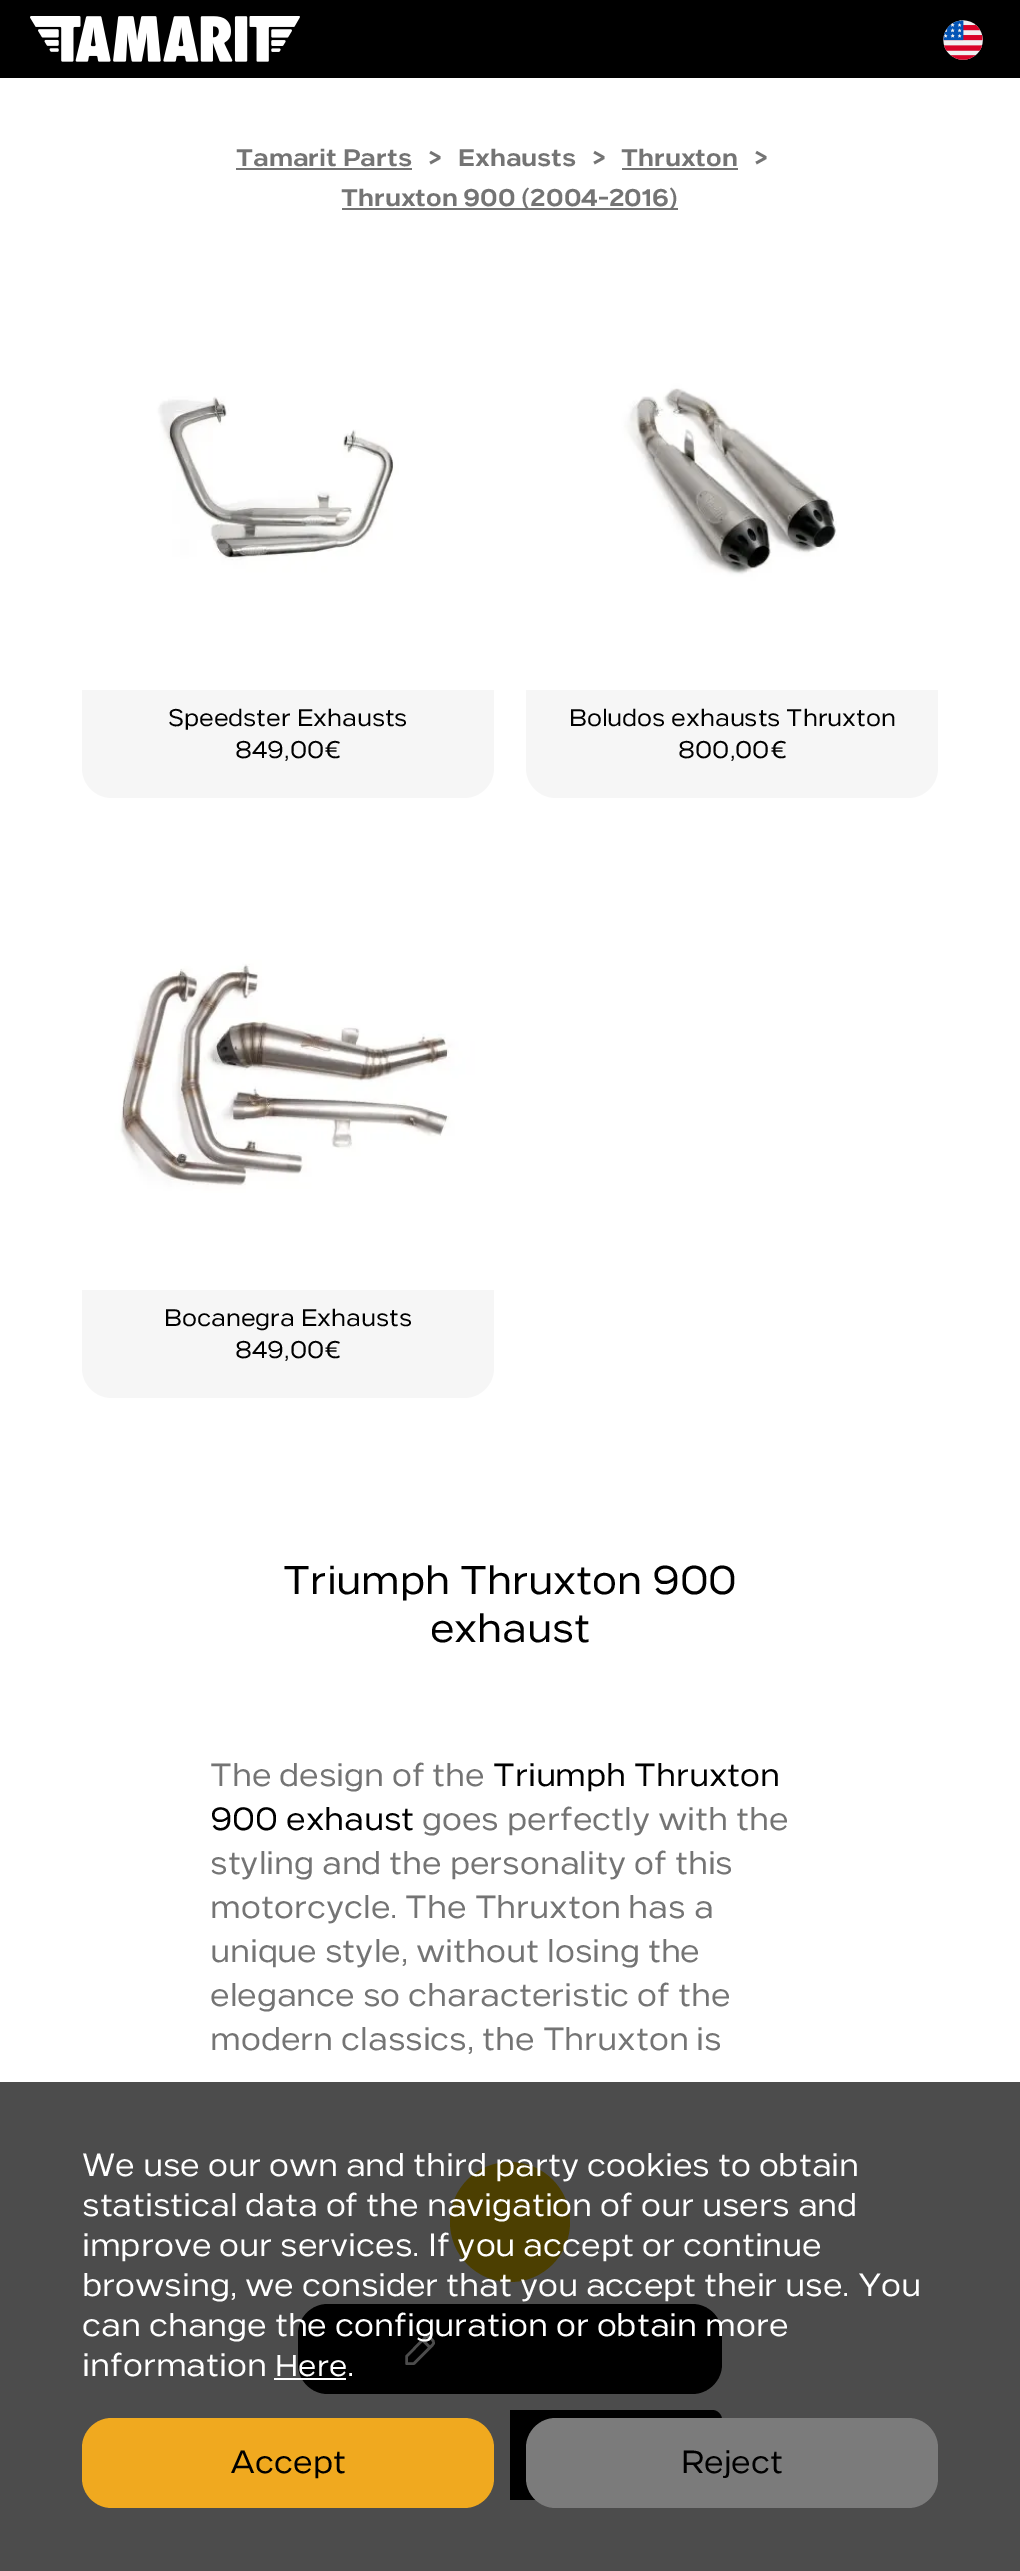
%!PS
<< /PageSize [1020 2571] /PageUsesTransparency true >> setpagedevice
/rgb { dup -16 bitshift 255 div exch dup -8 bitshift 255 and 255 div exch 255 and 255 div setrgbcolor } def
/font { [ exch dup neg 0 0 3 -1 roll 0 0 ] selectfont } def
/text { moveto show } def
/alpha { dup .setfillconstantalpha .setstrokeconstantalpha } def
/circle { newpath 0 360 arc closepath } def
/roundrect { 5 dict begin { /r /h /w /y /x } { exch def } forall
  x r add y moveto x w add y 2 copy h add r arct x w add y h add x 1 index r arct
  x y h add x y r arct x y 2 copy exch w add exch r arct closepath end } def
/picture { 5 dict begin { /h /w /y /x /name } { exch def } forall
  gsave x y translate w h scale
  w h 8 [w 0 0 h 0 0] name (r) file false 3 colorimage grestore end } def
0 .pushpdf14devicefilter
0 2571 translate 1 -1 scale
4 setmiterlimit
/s1 { /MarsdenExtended-SemiBold 24 font 16#747474 rgb } def
/s2 { /MarsdenExtended-Regular 24 font 16#000000 rgb } def
/s3 { /MarsdenExtended-Regular 40 font 16#000000 rgb } def
/s4 { /MarsdenExtended-Regular 32 font 16#747474 rgb } def
/s5 { /MarsdenExtended-Regular 32 font 16#000000 rgb } def
/s6 { /MarsdenExtended-Regular 32 font 16#FFFFFF rgb } def
/s7 { /MarsdenExtended-Regular 30 font 16#FFFFFF rgb } def
16#FFFFFF rgb
0 0 1020 2571 rectfill
16#000000 rgb
0 0 1020 78 rectfill
(pic1.raw) 30 16 270 46 picture
(pic2.raw) 943 20 40 40 picture
s1
(Tamarit Parts) 236 166 text
236 168 176 2 rectfill
(>) 428 166 text
(Exhausts) 458 166 text
(>) 592 166 text
(Thruxton) 621 166 text
622 168 116 2 rectfill
(>) 754 166 text
342 208 336 2 rectfill
(Thruxton 900 \(2004-2016\)) 341 206 text
16#F6F6F6 rgb
82 278 412 520 30 roundrect fill
(pic3.raw) 82 278 412 412 picture
s2
(Speedster Exhausts) 168 726 text
(849,00€) 235 758 text
16#F6F6F6 rgb
526 278 412 520 30 roundrect fill
(pic4.raw) 526 278 412 412 picture
s2
(Boludos exhausts Thruxton) 569 726 text
(800,00€) 678 758 text
16#F6F6F6 rgb
82 878 412 520 30 roundrect fill
(pic5.raw) 82 878 412 412 picture
s2
(Bocanegra Exhausts) 164 1326 text
(849,00€) 235 1358 text
s3
(Triumph Thruxton 900) 283 1594 text
(exhaust) 430 1642 text
s4
(The design of the) 210 1786 text
s5
(Triumph Thruxton) 493 1786 text
(900 exhaust) 210 1830 text
s4
(goes perfectly with the) 422 1830 text
(styling and the personality of this) 210 1874 text
(motorcycle. The Thruxton has a) 210 1918 text
(unique style, without losing the) 210 1962 text
(elegance so characteristic of the) 210 2006 text
(modern classics, the Thruxton is) 210 2050 text
16#FFD503 rgb
510 2222 60 circle fill
16#000000 rgb
298 2304 424 90 30 roundrect fill
16#FFFFFF rgb
2.5 setlinewidth
1 setlinecap
1 setlinejoin
430 2347.5 moveto 414 2363.5 lineto 406.5 2363.5 lineto 406.5 2356.5 lineto 422.5 2340 lineto closepath 422.5 2340 moveto 426 2337 427 2335 431 2338.5 curveto 435.5 2343 434 2343.5 430 2347.5 curveto stroke
16#000000 rgb
510 2410 moveto 712 2410 lineto 717.5 2410 722 2414.5 722 2420 curveto 722 2490 lineto 722 2495.5 717.5 2500 712 2500 curveto 510 2500 lineto closepath fill
0.7 alpha
0 2082 1020 489 rectfill
1 alpha
s6
(We use our own and third party cookies to obtain) 82 2176 text
(statistical data of the navigation of our users and) 82 2216 text
(improve our services. If you accept or continue) 82 2256 text
(browsing, we consider that you accept their use. You) 82 2296 text
(can change the configuration or obtain more) 82 2336 text
(information) 82 2376 text
s7
(Here) 275 2376 text
274 2378 72 2 rectfill
s6
(.) 347 2376 text
16#F0A91F rgb
82 2418 412 90 30 roundrect fill
s5
(Accept) 230 2473 text
16#7B7B7B rgb
526 2418 412 90 30 roundrect fill
s5
(Reject) 681 2473 text
.poppdf14devicefilter showpage
